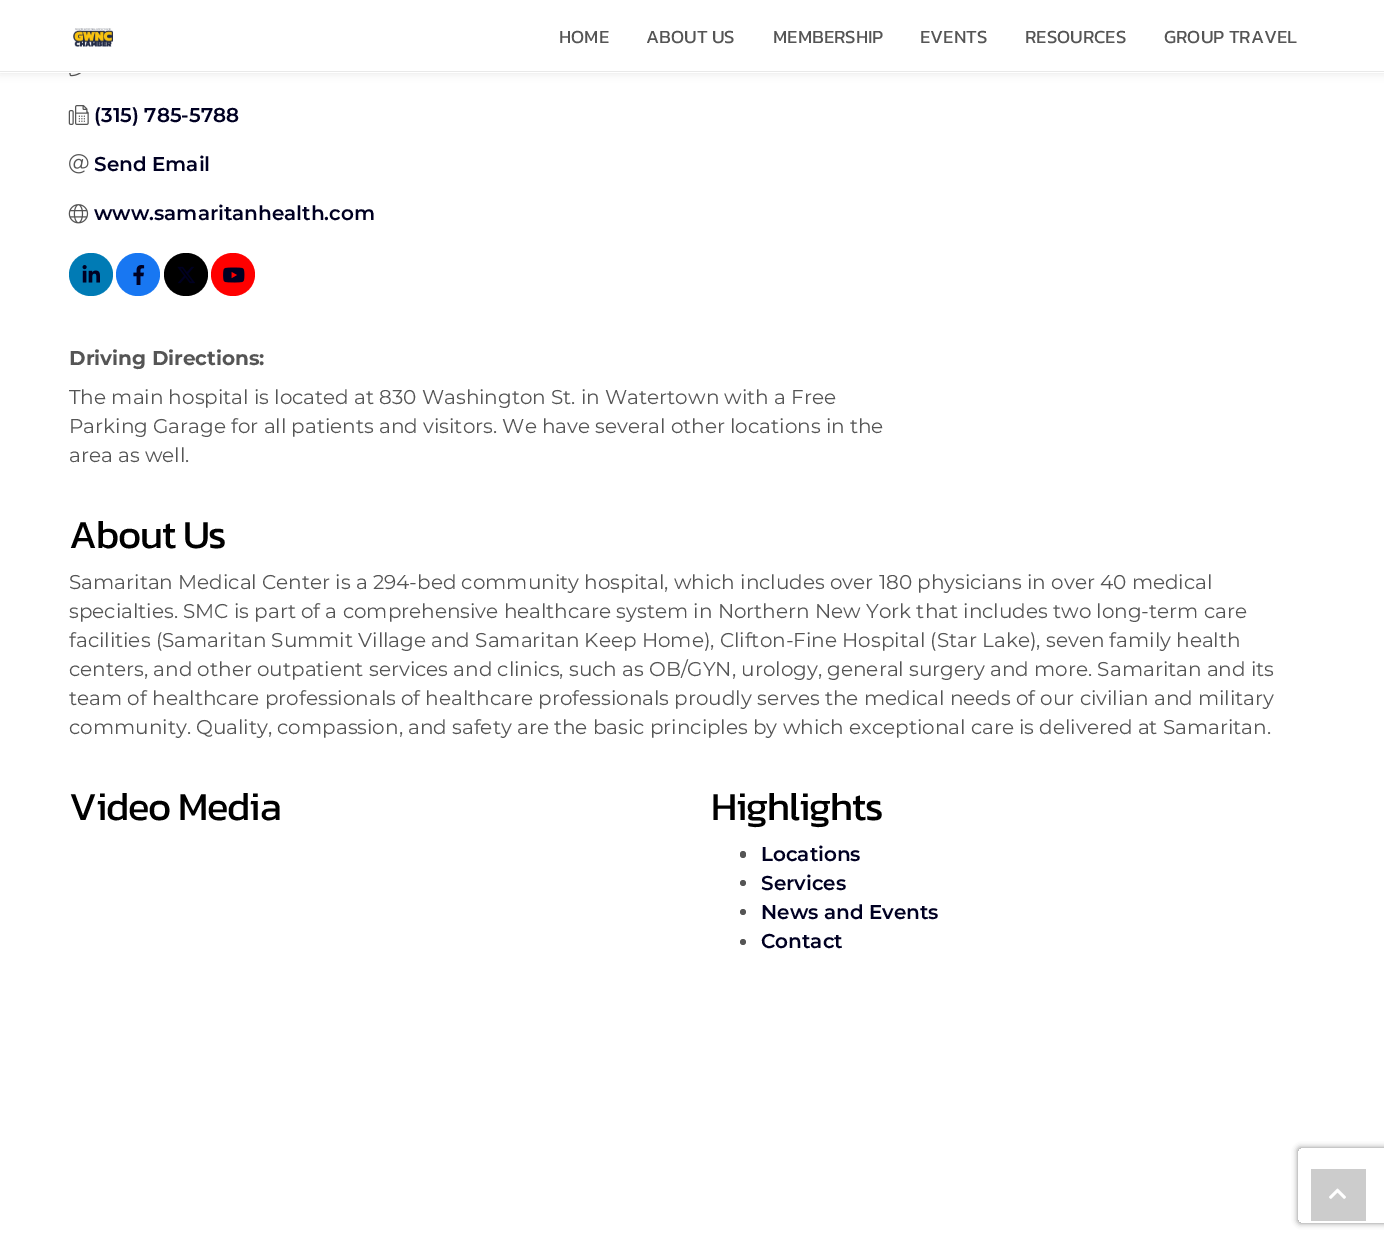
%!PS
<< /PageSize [1384 1240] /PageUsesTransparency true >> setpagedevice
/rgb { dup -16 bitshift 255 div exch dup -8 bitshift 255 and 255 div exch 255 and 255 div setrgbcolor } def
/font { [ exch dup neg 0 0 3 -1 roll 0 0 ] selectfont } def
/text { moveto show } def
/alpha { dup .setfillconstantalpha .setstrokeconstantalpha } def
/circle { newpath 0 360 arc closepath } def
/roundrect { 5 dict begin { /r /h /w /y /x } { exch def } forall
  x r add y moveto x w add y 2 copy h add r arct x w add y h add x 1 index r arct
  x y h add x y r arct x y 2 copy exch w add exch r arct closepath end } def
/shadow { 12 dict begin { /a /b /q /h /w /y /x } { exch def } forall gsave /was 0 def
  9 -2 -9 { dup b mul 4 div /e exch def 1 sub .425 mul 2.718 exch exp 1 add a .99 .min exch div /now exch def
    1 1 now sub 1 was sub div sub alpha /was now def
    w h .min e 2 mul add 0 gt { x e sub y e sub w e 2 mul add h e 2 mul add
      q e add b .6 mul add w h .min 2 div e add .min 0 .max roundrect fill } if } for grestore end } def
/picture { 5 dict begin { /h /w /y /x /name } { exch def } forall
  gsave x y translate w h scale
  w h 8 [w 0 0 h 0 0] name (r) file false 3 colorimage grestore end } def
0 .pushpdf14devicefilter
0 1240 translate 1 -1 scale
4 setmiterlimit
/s1 { /Kanit-Regular 18.75 font 16#555555 rgb } def
/s2 { /Montserrat-SemiBold 20 font 16#000022 rgb } def
/s3 { /Montserrat-Bold 20 font 16#555555 rgb } def
/s4 { /Montserrat-Regular 20 font 16#555555 rgb } def
16#FFFFFF rgb
0 0 1384 1240 rectfill
(pic2.raw) 69 73 12 4 picture
16#000000 rgb
0 0 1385 73 0 4.5 0.1 shadow
16#FFFFFF rgb
0 0 1384 73 rectfill
16#E9E9E9 rgb
0 71 1384 1 rectfill
(pic1.raw) 73 28 40 19 picture
s1
(HOME) 559 43 text
(ABOUT US) 646 43 text
(MEMBERSHIP) 773 43 text
(EVENTS) 920 43 text
(RESOURCES) 1025 43 text
(GROUP TRAVEL) 1164 43 text
(pic3.raw) 68 105 21 20 picture
s2
(\(315\) 785-5788) 94 122 text
(pic4.raw) 69 154 20 20 picture
(Send Email) 94 171 text
(pic5.raw) 68 204 21 20 picture
(www.samaritanhealth.com) 94 220 text
16#007BB5 rgb
69 253 44 43 21.5 roundrect fill
(pic6.raw) 82 265 18 18 picture
16#1877F2 rgb
116 253 44 43 21.5 roundrect fill
(pic7.raw) 133 265 12 20 picture
16#000000 rgb
164 253 44 43 21.5 roundrect fill
(pic8.raw) 177 266 18 18 picture
16#FF0000 rgb
211 253 44 43 21.5 roundrect fill
(pic9.raw) 223 267 22 16 picture
s3
(Driving Directions:) 69 365 text
s4
(The main hospital is located at 830 Washington St. in Watertown with a Free) 69 404 text
(Parking Garage for all patients and visitors. We have several other locations in the) 69 433 text
(area as well.) 69 462 text
/Kanit-Regular 40 font
16#000000 rgb
69 548 moveto -1.25 0 (About Us) ashow
s4
(Samaritan Medical Center is a 294-bed community hospital, which includes over 180 physicians in over 40 medical) 69 589 text
(specialties. SMC is part of a comprehensive healthcare system in Northern New York that includes two long-term care) 69 618 text
(facilities \(Samaritan Summit Village and Samaritan Keep Home\), Clifton-Fine Hospital \(Star Lake\), seven family health) 69 647 text
(centers, and other outpatient services and clinics, such as OB/GYN, urology, general surgery and more. Samaritan and its) 69 676 text
(team of healthcare professionals of healthcare professionals proudly serves the medical needs of our civilian and military) 69 705 text
(community. Quality, compassion, and safety are the basic principles by which exceptional care is delivered at Samaritan.) 69 734 text
/Kanit-Regular 40 font
16#000000 rgb
69 820 moveto -1.25 0 (Video Media) ashow
711 820 moveto -1.25 0 (Highlights) ashow
16#555555 rgb
740 851 6 7 3 roundrect fill
s2
(Locations) 761 861 text
16#555555 rgb
743 883 3 circle fill
s2
(Services) 761 890 text
16#555555 rgb
743 912 3 circle fill
s2
(News and Events) 761 919 text
16#555555 rgb
743 942 3 circle fill
s2
(Contact) 761 948 text
gsave
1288 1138 moveto 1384 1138 lineto 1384 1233 lineto 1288 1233 lineto closepath 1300.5 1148 moveto 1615.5 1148 lineto 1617 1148 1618 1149 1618 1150.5 curveto 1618 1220.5 lineto 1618 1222 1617 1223 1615.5 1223 curveto 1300.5 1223 lineto 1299 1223 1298 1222 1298 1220.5 curveto 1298 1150.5 lineto 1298 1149 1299 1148 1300.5 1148 curveto closepath eoclip newpath
16#808080 rgb
1298 1148 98 75 2.5 3 1 shadow
grestore
16#CCCCCC rgb
1311 1169 55 52 rectfill
(pic10.raw) 1329 1188 17 11 picture
.poppdf14devicefilter showpage
